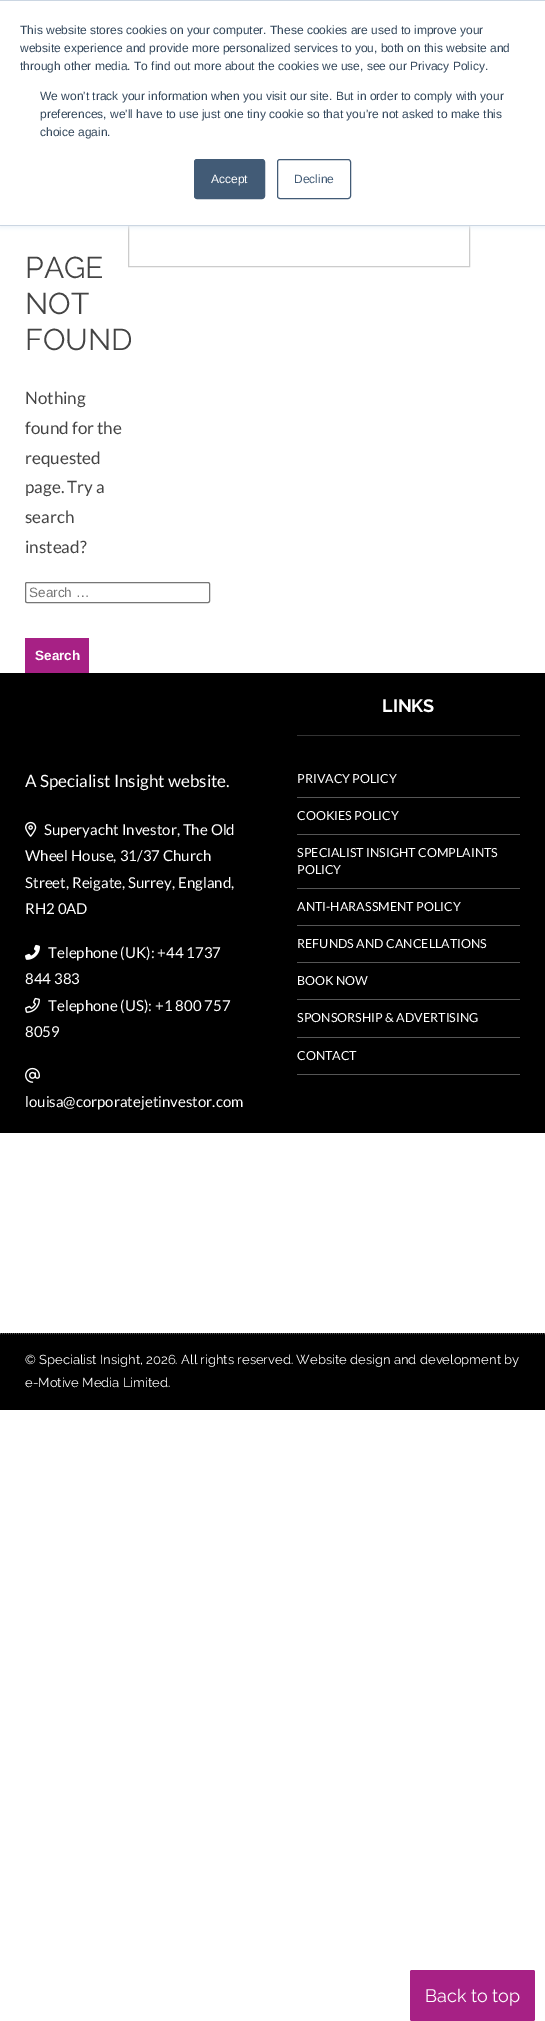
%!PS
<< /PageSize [545 2021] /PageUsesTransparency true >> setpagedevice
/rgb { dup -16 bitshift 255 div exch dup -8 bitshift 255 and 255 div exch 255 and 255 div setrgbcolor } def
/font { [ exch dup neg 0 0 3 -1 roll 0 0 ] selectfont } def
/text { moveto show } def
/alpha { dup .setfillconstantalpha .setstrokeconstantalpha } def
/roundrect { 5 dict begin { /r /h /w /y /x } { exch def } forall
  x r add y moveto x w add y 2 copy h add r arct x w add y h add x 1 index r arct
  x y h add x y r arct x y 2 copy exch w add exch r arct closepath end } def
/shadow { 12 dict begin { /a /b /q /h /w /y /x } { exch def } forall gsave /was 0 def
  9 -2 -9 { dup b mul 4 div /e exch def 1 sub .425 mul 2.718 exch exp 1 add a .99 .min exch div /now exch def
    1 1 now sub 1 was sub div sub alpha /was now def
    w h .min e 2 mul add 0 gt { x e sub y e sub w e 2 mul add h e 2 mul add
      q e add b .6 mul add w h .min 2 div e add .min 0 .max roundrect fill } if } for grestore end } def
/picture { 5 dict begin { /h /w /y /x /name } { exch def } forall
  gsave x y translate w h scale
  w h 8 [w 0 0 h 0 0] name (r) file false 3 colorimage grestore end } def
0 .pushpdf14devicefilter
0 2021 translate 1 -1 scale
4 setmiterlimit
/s1 { /LiberationSans-Regular 12 font 16#33475B rgb } def
/s2 { /LiberationSans-Regular 12 font 16#FFFFFF rgb } def
/s3 { /LiberationSans-Regular 12 font 16#425B76 rgb } def
/s4 { /Raleway-Regular 30 font 16#444444 rgb } def
/s5 { /Lato-Regular 17 font 16#444444 rgb } def
/s6 { /LiberationSans-Regular 13.5 font 16#757575 rgb } def
/s7 { /LiberationSans-Bold 13.5 font 16#FFFFFF rgb } def
/s8 { /Lato-Regular 17 font 16#FFFFFF rgb } def
/s9 { /Lato-Regular 15 font 16#FFFFFF rgb } def
/s10 { /Raleway-Bold 18 font 16#FFFFFF rgb } def
/s11 { /Lato-Regular 12.5 font 16#FFFFFF rgb } def
/s12 { /Raleway-Regular 18 font 16#FFFFFF rgb } def
/s13 { /Raleway-Regular 13 font 16#FFFFFF rgb } def
16#FFFFFF rgb
0 0 545 2021 rectfill
16#CCCCCC rgb
128.5 225.5 341 41 rectstroke
16#EAF0F6 rgb
0 1 545 226 0 2.5 1 shadow
16#FFFFFF rgb
0 1 545 224 rectfill
16#CBD6E2 rgb
0 0 545 1 rectfill
0 225 545 1 rectfill
s1
(This website stores cookies on your computer. These cookies are used to improve your) 20 34 text
(website experience and provide more personalized services to you, both on this website and) 20 52 text
(through other media. To find out more about the cookies we use, see our Privacy Policy.) 20 70 text
(We won't track your information when you visit our site. But in order to comply with your) 40 100 text
(preferences, we'll have to use just one tiny cookie so that you're not asked to make this) 40 118 text
(choice again.) 40 136 text
16#425B76 rgb
194.5 159.5 70 39 2.5 roundrect gsave fill grestore
stroke
s2
(Accept) 211 183 text
16#425B76 rgb
277.5 159.5 73 39 2.5 roundrect stroke
(Decline) 294 183 text
s4
(PAGE) 25 278 text
(NOT) 25 314 text
(FOUND) 25 350 text
s5
(Nothing) 25 404 text
(found for the) 25 434 text
(requested) 25 464 text
(page. Try a) 25 493 text
(search) 25 523 text
(instead?) 25 553 text
16#767676 rgb
25.5 582.5 184 20 1.5 roundrect stroke
s6
(Search …) 29 597 text
16#A72185 rgb
25 638 64 35 rectfill
s7
(Search) 35 660 text
16#000000 rgb
0 673 545 460 rectfill
s8
(A Specialist Insight website.) 25 787 text
(pic1.raw) 25 821 12 16 picture
s9
(Superyacht Investor, The Old) 44 835 text
(Wheel House, 31/37 Church) 25 861 text
(Street, Reigate, Surrey, England,) 25 888 text
(RH2 0AD) 25 914 text
(pic2.raw) 25 944 15 16 picture
(Telephone \(UK\): +44 1737) 48 958 text
(844 383) 25 984 text
(pic3.raw) 25 997 15 16 picture
(Telephone \(US\): +1 800 757) 48 1011 text
(8059) 25 1037 text
(pic4.raw) 25 1067 15 16 picture
(louisa@corporatejetinvestor.com) 25 1107 text
16#333333 rgb
297 735 223 1 rectfill
s10
(LINKS) 382 712 text
16#555555 rgb
297 797 223 1 rectfill
s11
(PRIVACY POLICY) 297 783 text
16#555555 rgb
297 834 223 1 rectfill
s11
(COOKIES POLICY) 297 820 text
16#555555 rgb
297 888 223 1 rectfill
s11
(SPECIALIST INSIGHT COMPLAINTS) 297 857 text
(POLICY) 297 874 text
16#555555 rgb
297 925 223 1 rectfill
s11
(ANTI-HARASSMENT POLICY) 297 911 text
16#555555 rgb
297 962 223 1 rectfill
s11
(REFUNDS AND CANCELLATIONS) 297 948 text
16#555555 rgb
297 999 223 1 rectfill
s11
(BOOK NOW) 297 985 text
16#555555 rgb
297 1037 223 1 rectfill
s11
(SPONSORSHIP & ADVERTISING) 297 1022 text
16#555555 rgb
297 1074 223 1 rectfill
s11
(CONTACT) 297 1060 text
16#A72185 rgb
410 1970 125 51 2 roundrect fill
s12
(Back to top) 425 2002 text
16#000000 rgb
0 1333 545 77 rectfill
16#555555 rgb
[1 1] 0 setdash
0 1333.5 moveto 545 1333.5 lineto stroke
s13
(© Specialist Insight, 2026. All rights reserved. Website design and development by) 25 1364 text
(e-Motive Media Limited.) 25 1387 text
.poppdf14devicefilter showpage
